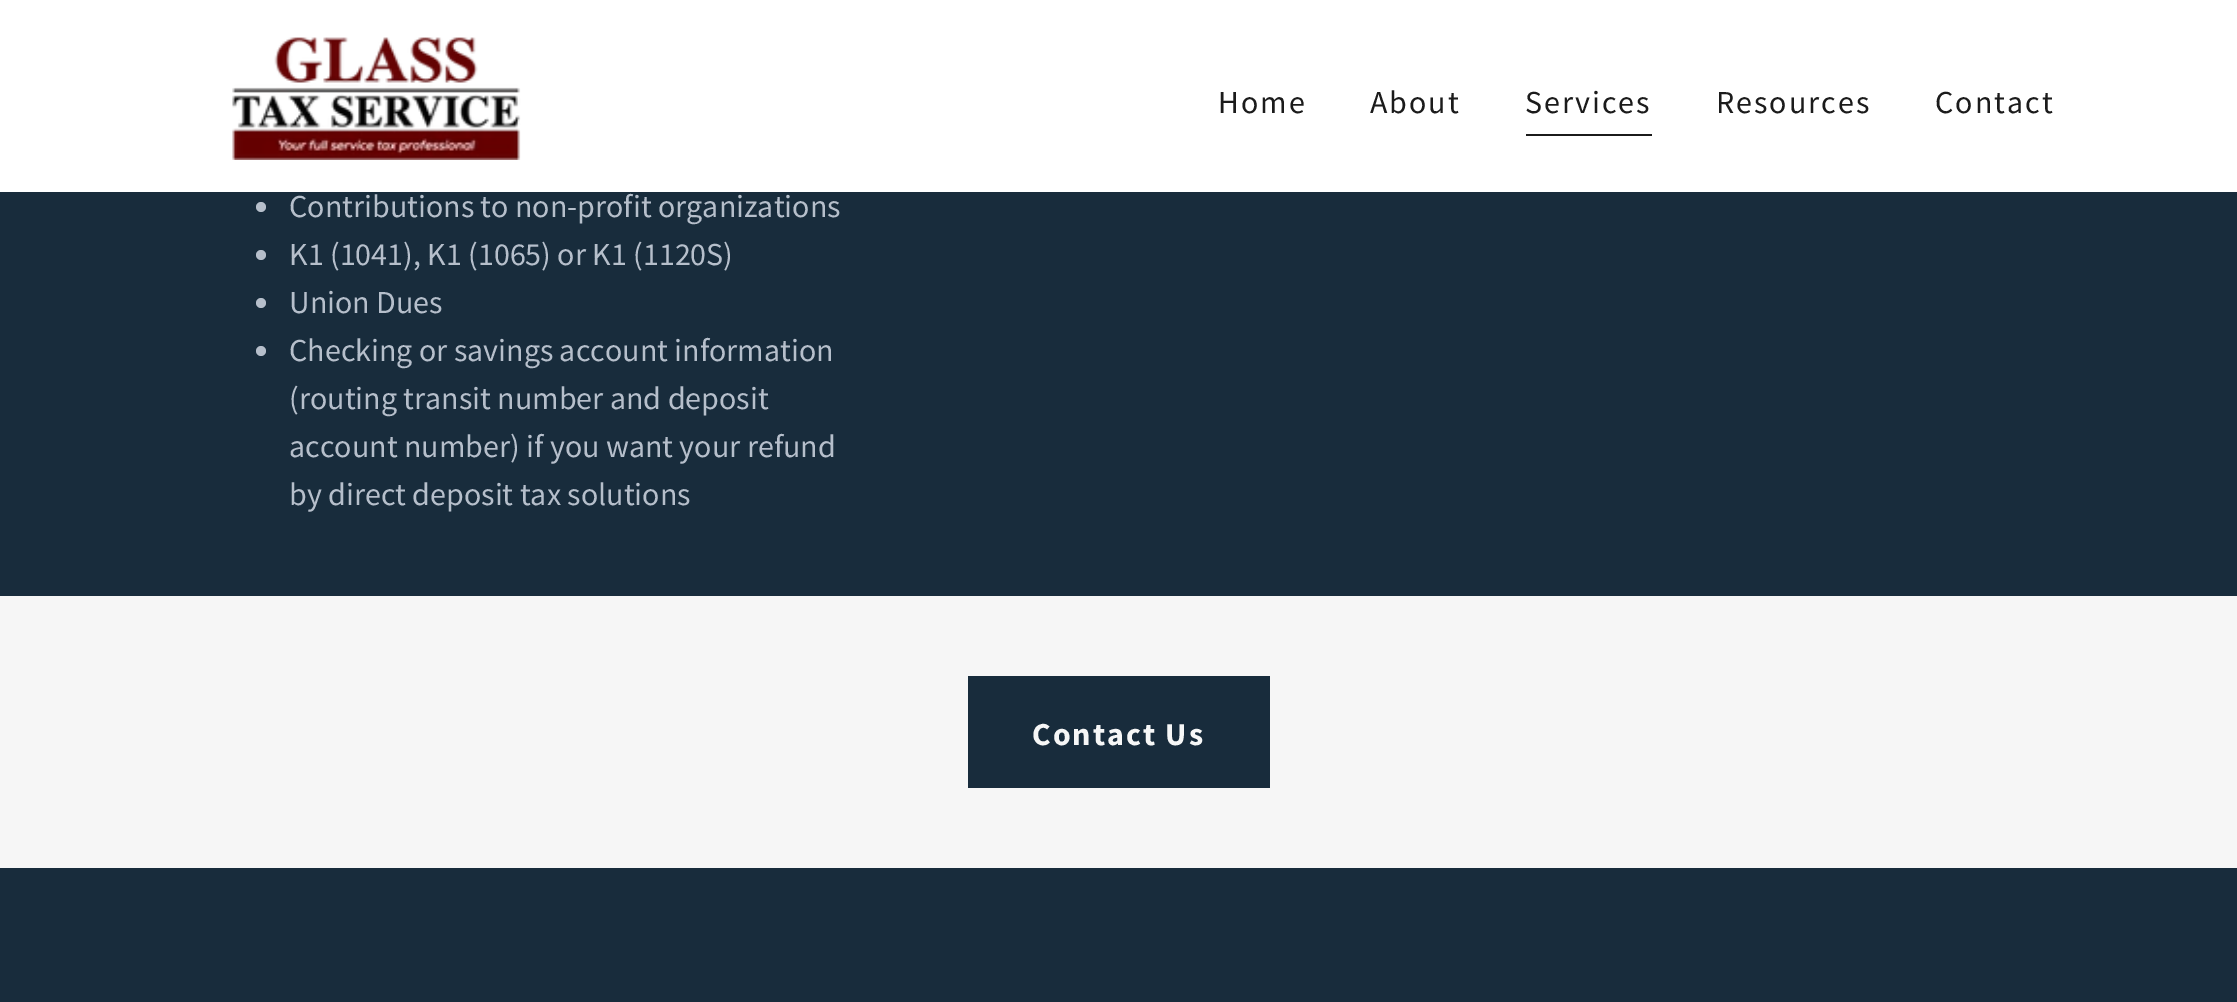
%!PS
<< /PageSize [2237 1002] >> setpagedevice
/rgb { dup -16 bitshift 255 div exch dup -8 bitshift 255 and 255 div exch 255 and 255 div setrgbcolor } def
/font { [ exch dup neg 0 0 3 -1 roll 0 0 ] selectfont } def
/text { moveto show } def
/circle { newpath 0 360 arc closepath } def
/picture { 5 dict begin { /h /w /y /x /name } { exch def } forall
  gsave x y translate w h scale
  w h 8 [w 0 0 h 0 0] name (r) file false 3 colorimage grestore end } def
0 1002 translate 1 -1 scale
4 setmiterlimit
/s1 { /SourceSansPro-Regular 32 font 16#B6BFCB rgb } def
16#182C3C rgb
0 0 2237 1002 rectfill
16#FFFFFF rgb
0 0 2237 192 rectfill
(pic1.raw) 232 37 289 123 picture
/SourceSansPro-Regular 32 font
16#1B1B1B rgb
1218 113 moveto 2 0 (Home) ashow
1370 113 moveto 2 0 (About) ashow
1526 134 126 2 rectfill
1525 113 moveto 2 0 (Services) ashow
1716 113 moveto 2 0 (Resources) ashow
1935 113 moveto 2 0 (Contact) ashow
16#B6BFCB rgb
261 207 5 circle fill
(Contributions to non-profit organizations) 289 217 text
261 255 5 circle fill
(K1 \(1041\), K1 \(1065\) or K1 \(1120S\)) 289 265 text
261 303 5 circle fill
(Union Dues) 289 313 text
261 351 5 circle fill
(Checking or savings account information) 289 361 text
(\(routing transit number and deposit) 289 409 text
(account number\) if you want your refund) 289 457 text
(by direct deposit tax solutions) 289 505 text
16#F6F6F6 rgb
0 596 2237 272 rectfill
16#182C3C rgb
968 676 302 112 rectfill
/SourceSansPro-Bold 32 font
16#F6F7F7 rgb
1032 745 moveto 2 0 (Contact Us) ashow
showpage
